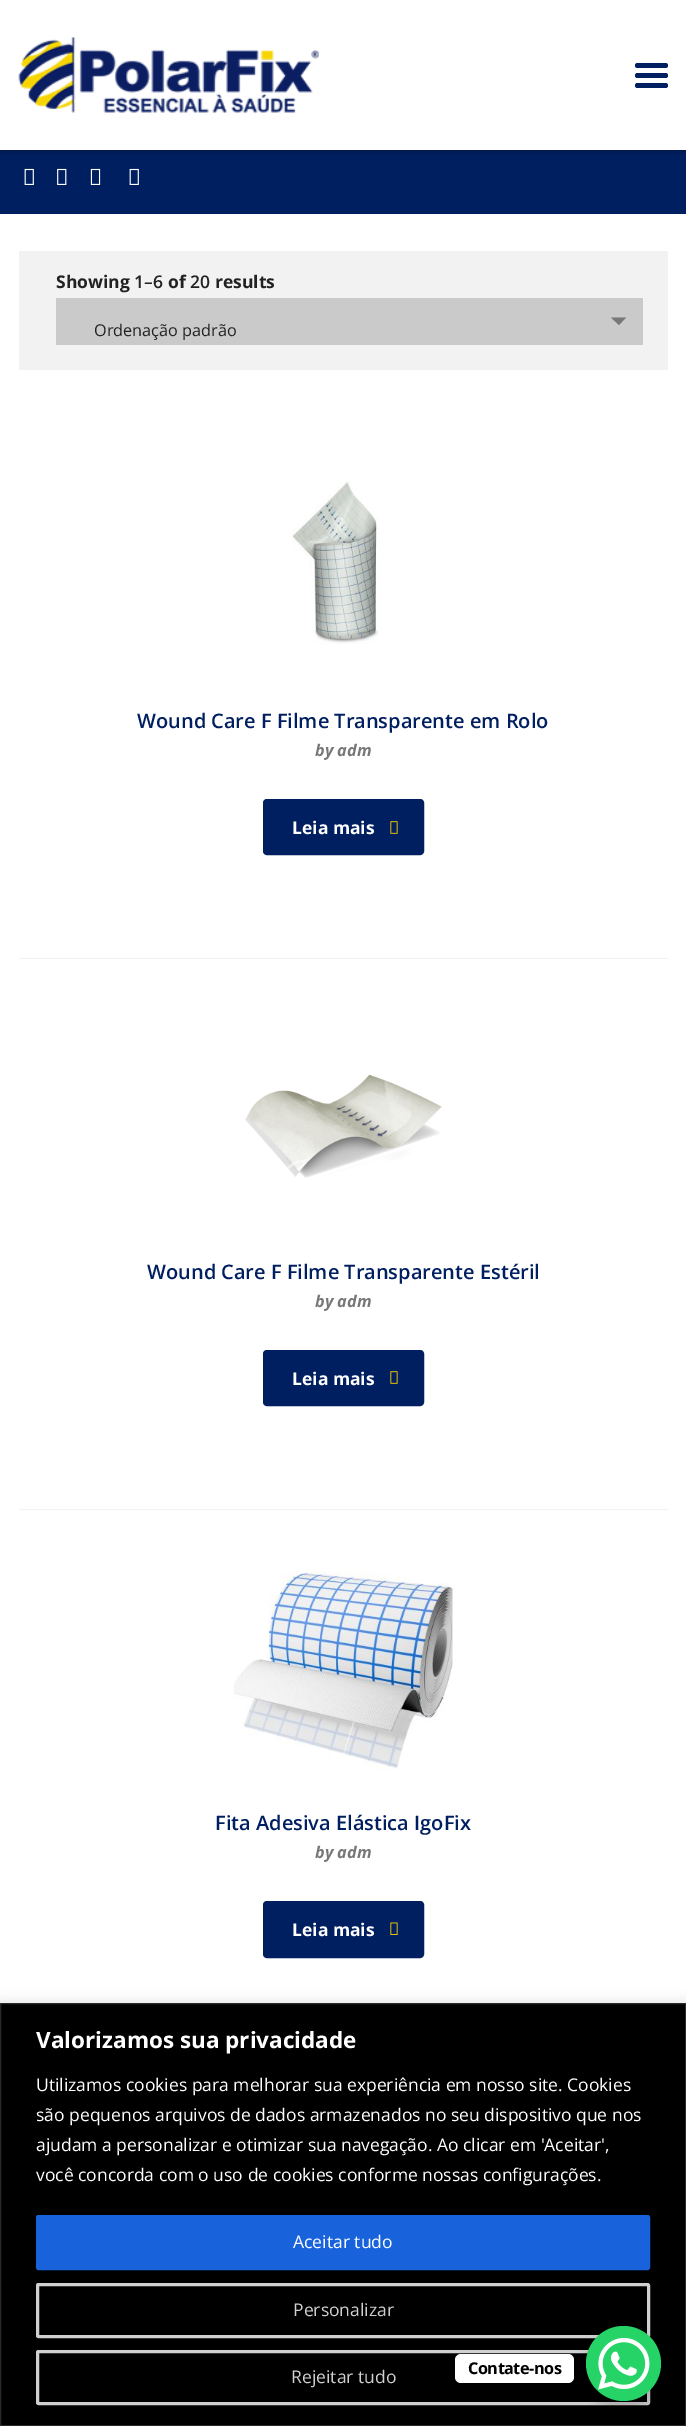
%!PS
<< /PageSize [686 2426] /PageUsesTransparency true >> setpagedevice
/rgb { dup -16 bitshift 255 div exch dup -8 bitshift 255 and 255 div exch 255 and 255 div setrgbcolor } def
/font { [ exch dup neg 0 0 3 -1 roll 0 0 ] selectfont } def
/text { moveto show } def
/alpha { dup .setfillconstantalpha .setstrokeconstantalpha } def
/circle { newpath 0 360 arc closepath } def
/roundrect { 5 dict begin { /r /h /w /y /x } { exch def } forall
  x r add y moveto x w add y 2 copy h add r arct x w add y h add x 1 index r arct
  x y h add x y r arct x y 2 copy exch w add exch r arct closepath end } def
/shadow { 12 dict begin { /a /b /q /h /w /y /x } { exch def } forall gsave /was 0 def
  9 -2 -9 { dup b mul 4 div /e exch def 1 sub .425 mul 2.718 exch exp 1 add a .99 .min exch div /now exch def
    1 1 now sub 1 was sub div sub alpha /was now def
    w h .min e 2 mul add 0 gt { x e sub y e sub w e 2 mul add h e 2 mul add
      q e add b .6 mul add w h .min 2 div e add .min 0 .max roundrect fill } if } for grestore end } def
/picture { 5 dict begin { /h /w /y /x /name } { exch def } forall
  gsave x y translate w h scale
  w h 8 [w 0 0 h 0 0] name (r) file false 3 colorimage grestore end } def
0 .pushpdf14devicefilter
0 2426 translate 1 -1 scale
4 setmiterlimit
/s1 { /OpenSans-Bold 17.5 font 16#222222 rgb } def
/s2 { /OpenSans-SemiBold 17.5 font 16#222222 rgb } def
/s3 { /OpenSans-Regular 16.25 font 16#222222 rgb } def
/s4 { /OpenSans-SemiBold 20 font 16#001F60 rgb } def
/s5 { /OpenSans-BoldItalic 16.25 font 16#777777 rgb } def
/s6 { /OpenSans-Bold 17.5 font 16#FFFFFF rgb } def
/s7 { /OpenSans-Bold 22.5 font 16#FFFFFF rgb } def
/s8 { /OpenSans-Regular 17.5 font 16#FFFFFF rgb } def
/s9 { /OpenSans-Regular 17.5 font 16#D0D0D0 rgb } def
16#FFFFFF rgb
0 0 686 2426 rectfill
16#001F60 rgb
0 150 686 64 rectfill
16#000000 rgb
0 0 686 150 0 3 0.52 shadow
16#FFFFFF rgb
0 0 686 150 rectfill
(pic1.raw) 18 37 301 76 picture
16#001F60 rgb
635 73 33 5 2.5 roundrect fill
635 63 33 5 2.5 roundrect fill
635 83 33 5 2.5 roundrect fill
(pic2.raw) 24 168 10 17 picture
(pic3.raw) 57 168 10 17 picture
(pic4.raw) 90 168 11 17 picture
(pic2.raw) 129 168 10 17 picture
16#F2F2F2 rgb
19 251 649 119 rectfill
s1
(Showing) 56 288 text
s2
(1–6) 134 288 text
s1
(of) 168 288 text
s2
(20) 190 288 text
s1
(results) 215 288 text
16#CACACA rgb
56 298 587 47 rectfill
16#777777 rgb
611 317.5 moveto 626 317.5 lineto 619 325 lineto closepath fill
s3
(Ordenação padrão) 94 336 text
(pic5.raw) 292 481 88 163 picture
s4
(Wound Care F Filme Transparente em Rolo) 137 728 text
s5
(by adm) 315 756 text
16#001F60 rgb
265 801 157 52 2 roundrect gsave fill grestore
4 setlinewidth
stroke
s6
(Leia mais) 292 834 text
(pic6.raw) 390 821 8 13 picture
16#F2F2F2 rgb
19 958 649 1 rectfill
(pic7.raw) 245 1074 197 104 picture
s4
(Wound Care F Filme Transparente Estéril) 147 1279 text
s5
(by adm) 315 1307 text
16#001F60 rgb
265 1352 157 52 2 roundrect gsave fill grestore
stroke
s6
(Leia mais) 292 1385 text
(pic6.raw) 390 1371 8 13 picture
16#F2F2F2 rgb
19 1509 649 1 rectfill
(pic8.raw) 234 1571 219 199 picture
s4
(Fita Adesiva Elástica IgoFix) 215 1830 text
s5
(by adm) 315 1858 text
16#001F60 rgb
265 1903 157 53 2 roundrect gsave fill grestore
stroke
s6
(Leia mais) 292 1936 text
(pic9.raw) 390 1922 8 13 picture
16#ACABAB rgb
0 2001 686 424 0 6 0.3 shadow
16#000000 rgb
0.5 2003.5 moveto 685.5 2003.5 lineto 685.5 2425.5 lineto 0.5 2425.5 lineto closepath gsave fill grestore
16#2A2A2A rgb
1 setlinewidth
stroke
s7
(Valorizamos sua privacidade) 36 2048 text
s8
(Utilizamos cookies para melhorar sua experiência em nosso site. Cookies) 36 2091 text
(são pequenos arquivos de dados armazenados no seu dispositivo que nos) 36 2121 text
(ajudam a personalizar e otimizar sua navegação. Ao clicar em 'Aceitar',) 36 2151 text
(você concorda com o uso de cookies conforme nossas configurações.) 36 2181 text
16#1863DC rgb
37.5 2216.5 611 52 1 roundrect gsave fill grestore
3 setlinewidth
stroke
s8
(Aceitar tudo) 293 2248 text
16#D0D0D0 rgb
37.5 2284.5 611 52 1 roundrect stroke
(Personalizar) 293 2316 text
37.5 2351.5 611 52 1 roundrect stroke
(Rejeitar tudo) 291 2383 text
16#000000 rgb
584 2331 80 80 40 5 0.15 shadow
16#FFFFFF rgb
455 2354 119 29 6 roundrect fill
/OpenSans-Bold 16.25 font
16#000000 rgb
468 2374 moveto -0.5 0 (Contate-nos) ashow
16#25D366 rgb
623.5 2363.5 37.5 circle fill
(pic10.raw) 598 2337 52 53 picture
.poppdf14devicefilter showpage
